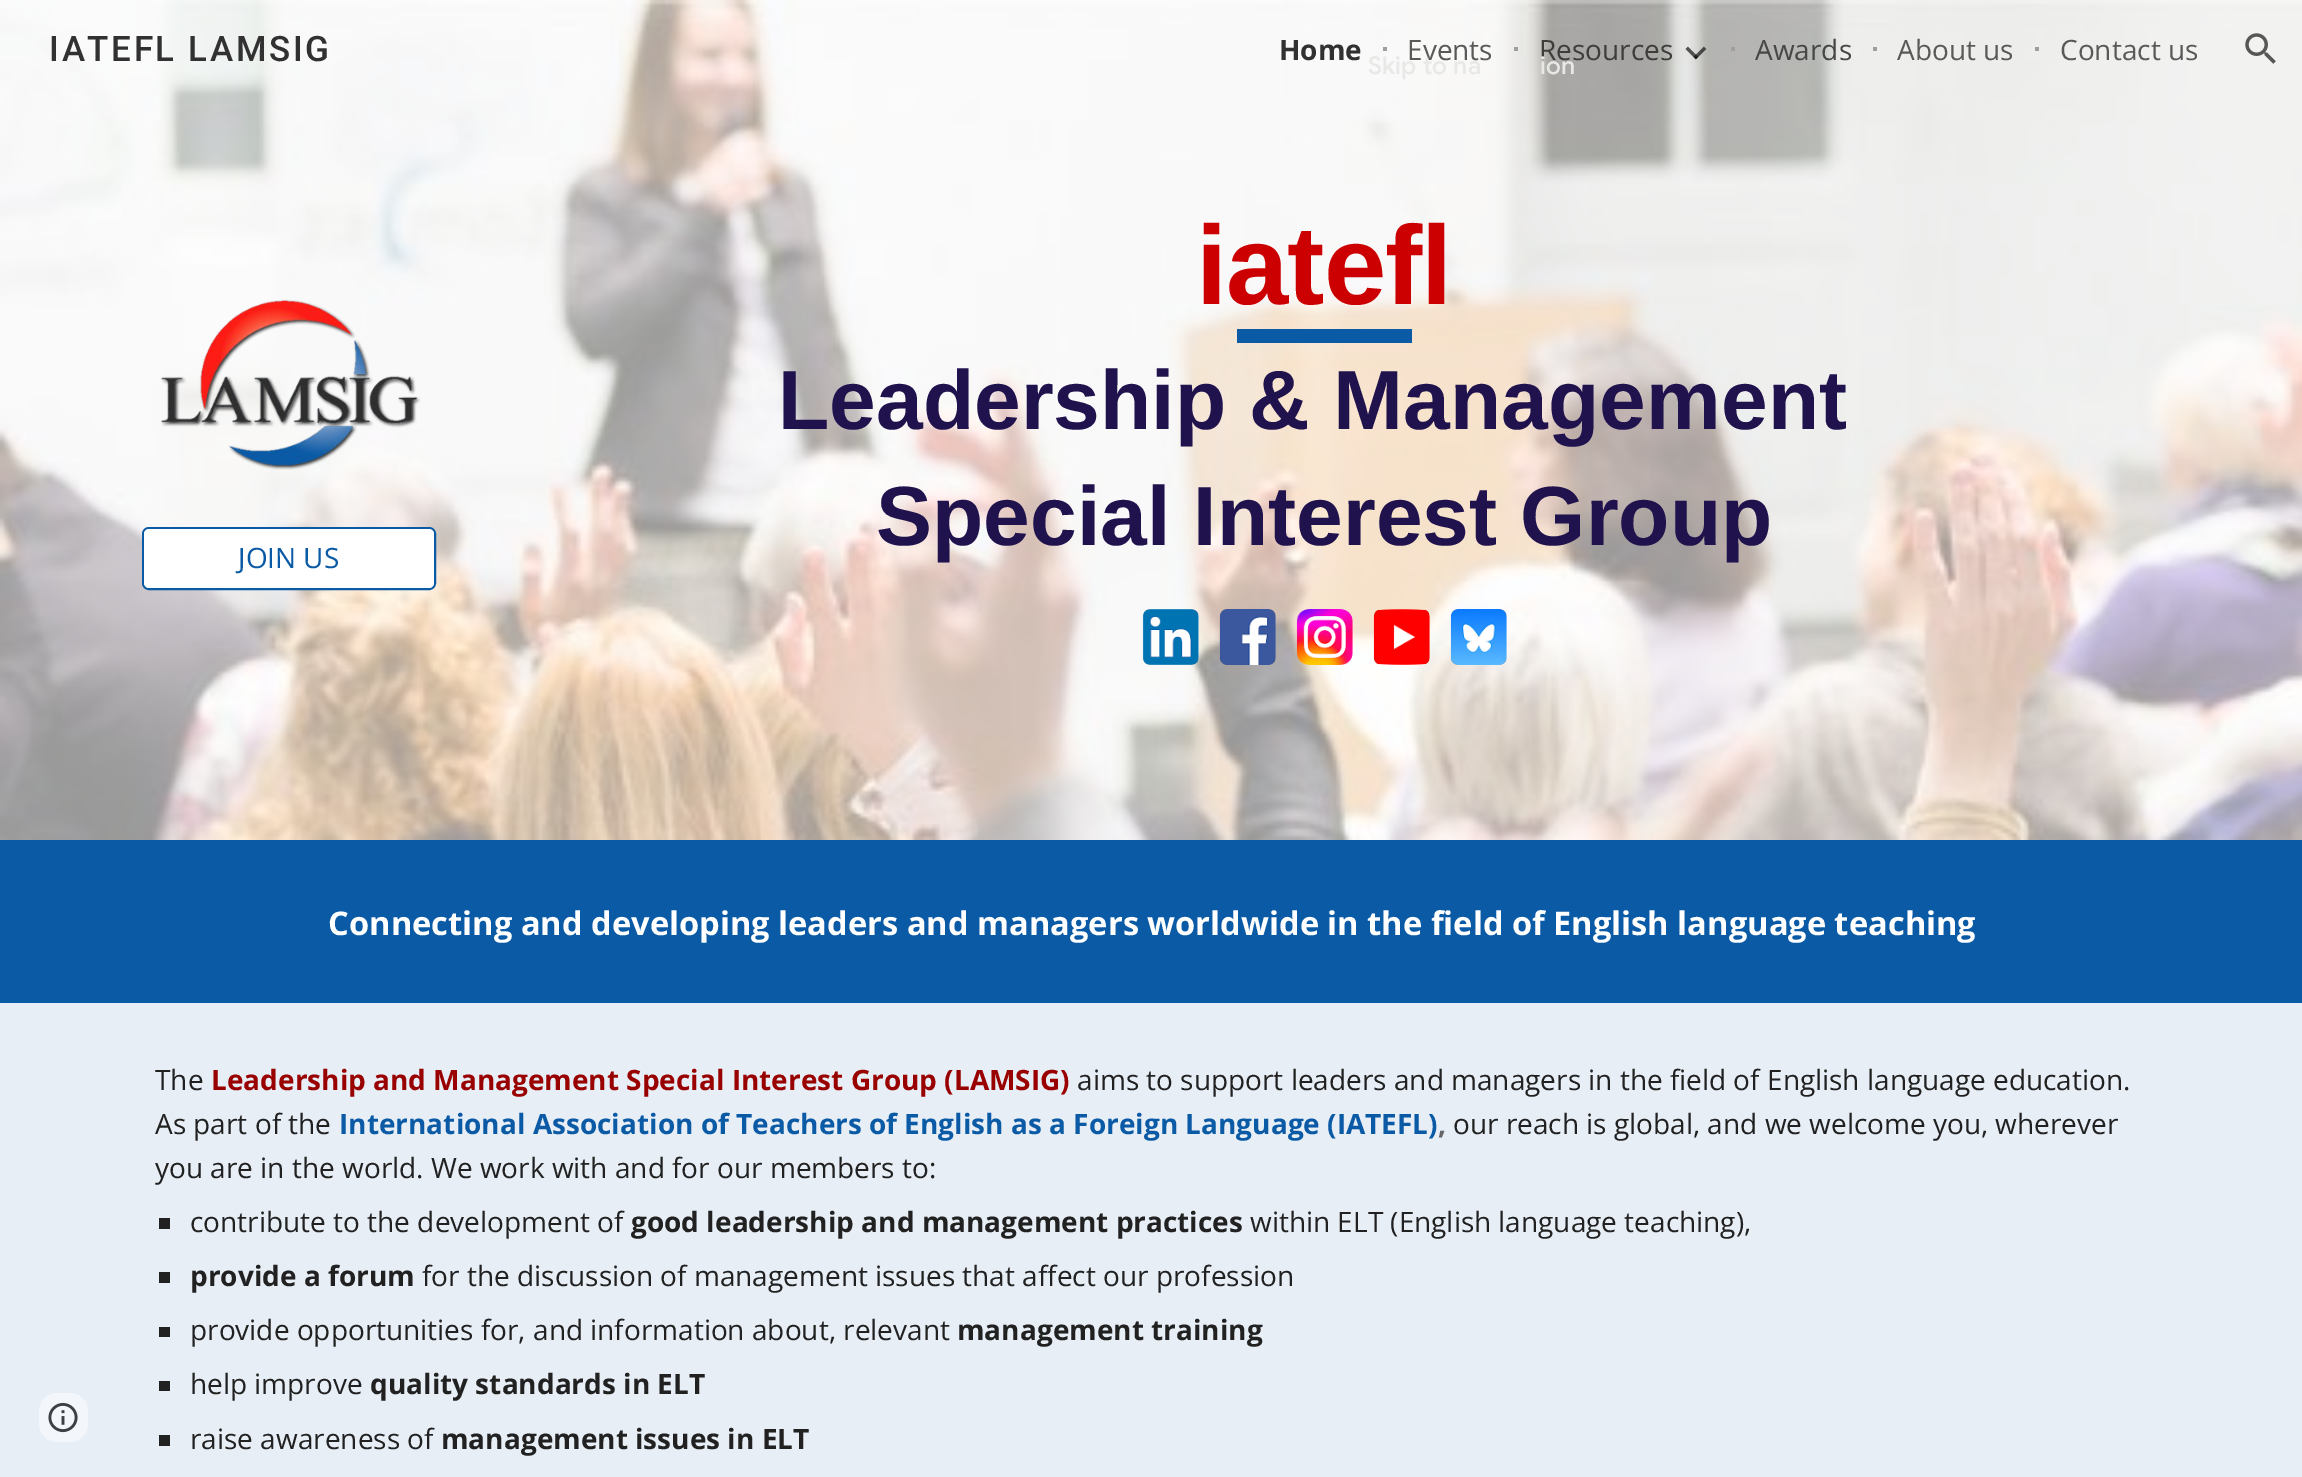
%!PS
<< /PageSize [2302 1477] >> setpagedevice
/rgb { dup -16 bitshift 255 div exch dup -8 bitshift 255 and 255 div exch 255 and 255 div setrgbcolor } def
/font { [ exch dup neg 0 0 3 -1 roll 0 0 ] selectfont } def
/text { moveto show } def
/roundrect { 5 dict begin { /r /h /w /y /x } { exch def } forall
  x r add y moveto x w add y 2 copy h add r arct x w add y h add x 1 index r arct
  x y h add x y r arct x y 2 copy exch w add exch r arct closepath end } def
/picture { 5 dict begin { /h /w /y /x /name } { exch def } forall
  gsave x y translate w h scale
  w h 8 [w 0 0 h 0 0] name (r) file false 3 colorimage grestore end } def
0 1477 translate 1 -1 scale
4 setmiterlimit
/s1 { /OpenSans-Bold 28 font 16#313131 rgb } def
/s2 { /OpenSans-Regular 28 font 16#5A5959 rgb } def
/s3 { /OpenSans-Regular 28 font 16#3E3D3C rgb } def
/s4 { /OpenSans-Regular 28 font 16#474746 rgb } def
/s5 { /OpenSans-Regular 28 font 16#0B5AA5 rgb } def
/s6 { /LiberationSans-Bold 84 font 16#20124D rgb } def
/s7 { /OpenSans-Bold 32.67 font 16#FFFFFF rgb } def
/s8 { /OpenSans-Regular 28 font 16#212121 rgb } def
/s9 { /OpenSans-Bold 28 font 16#990000 rgb } def
/s10 { /OpenSans-Bold 28 font 16#0B5AA5 rgb } def
/s11 { /OpenSans-Bold 28 font 16#666666 rgb } def
/s12 { /OpenSans-Bold 28 font 16#212121 rgb } def
16#FFFFFF rgb
0 0 2302 1477 rectfill
(pic4.raw) 0 0 2302 840 picture
/Roboto-Medium 35 font
16#313131 rgb
49 61 moveto 2.6 0 (IATEFL LAMSIG) ashow
s1
(Home) 1279 60 text
16#9E9E9E rgb
1383 47 4 4 rectfill
s2
(Events) 1407 60 text
16#9E9E9E rgb
1514 47 4 4 rectfill
s3
(Resources) 1539 60 text
(pic1.raw) 1685 46 22 14 picture
16#9E9E9E rgb
1731 47 4 4 rectfill
s4
(Awards) 1755 60 text
16#9E9E9E rgb
1873 47 4 4 rectfill
s2
(About us) 1897 60 text
16#9E9E9E rgb
2035 47 4 4 rectfill
s2
(Contact us) 2060 60 text
(pic2.raw) 2245 33 31 31 picture
16#E7EEF6 rgb
0 1003 2302 474 rectfill
16#F3F7FB rgb
39 1393 49 49 18 roundrect fill
(pic3.raw) 48 1402 30 31 picture
(pic5.raw) 160 299 261 171 picture
16#0B5AA5 rgb
2 setlinewidth
143 528 292 61 6 roundrect stroke
16#FFFFFF rgb
144 529 290 59 5 roundrect fill
s5
(JOIN US) 238 568 text
/LiberationSans-Bold 112 font
16#CC0000 rgb
1196 304 moveto -1 0 (iatefl) ashow
16#0B5AA5 rgb
1237 329 175 14 rectfill
s6
(Leadership & Management) 778 429 text
(Special Interest Group) 876 545 text
(pic6.raw) 1142 609 57 56 picture
(pic7.raw) 1219 609 57 56 picture
(pic8.raw) 1296 609 57 56 picture
(pic9.raw) 1373 609 57 56 picture
(pic10.raw) 1450 609 57 56 picture
16#0B5AA5 rgb
0 840 2302 163 rectfill
s7
(Connecting and developing leaders and managers worldwide in the field of English language teaching) 328 935 text
s8
(The) 155 1090 text
s9
(Leadership and Management Special Interest Group \(LAMSIG\)) 211 1090 text
s8
(aims to support leaders and managers in the field of English language education.) 1077 1090 text
(As part of the) 155 1134 text
s10
(International Association of Teachers of English as a Foreign Language \(IATEFL\)) 339 1134 text
s11
(,) 1438 1134 text
s8
(our reach is global, and we welcome you, wherever) 1453 1134 text
(you are in the world. We work with and for our members to:) 155 1178 text
159 1218 11 11 rectfill
(contribute to the development of) 190 1232 text
s12
(good leadership and management practices) 631 1232 text
s8
(within ELT \(English language teaching\),) 1250 1232 text
159 1272 11 11 rectfill
s12
(provide a forum) 190 1286 text
s8
(for the discussion of management issues that affect our profession) 422 1286 text
159 1327 11 10 rectfill
(provide opportunities for, and information about, relevant) 190 1340 text
s12
(management training) 957 1340 text
159 1381 11 10 rectfill
s8
(help improve) 190 1394 text
s12
(quality standards in ELT) 370 1394 text
159 1435 11 11 rectfill
s8
(raise awareness of) 190 1449 text
s12
(management issues in ELT) 441 1449 text
/GoogleSans-Medium 24.5 font
16#E8E8E7 rgb
1368 74 moveto 0.25 0 (Skip to na) ashow
1540 74 moveto 0.25 0 (ion) ashow
showpage
